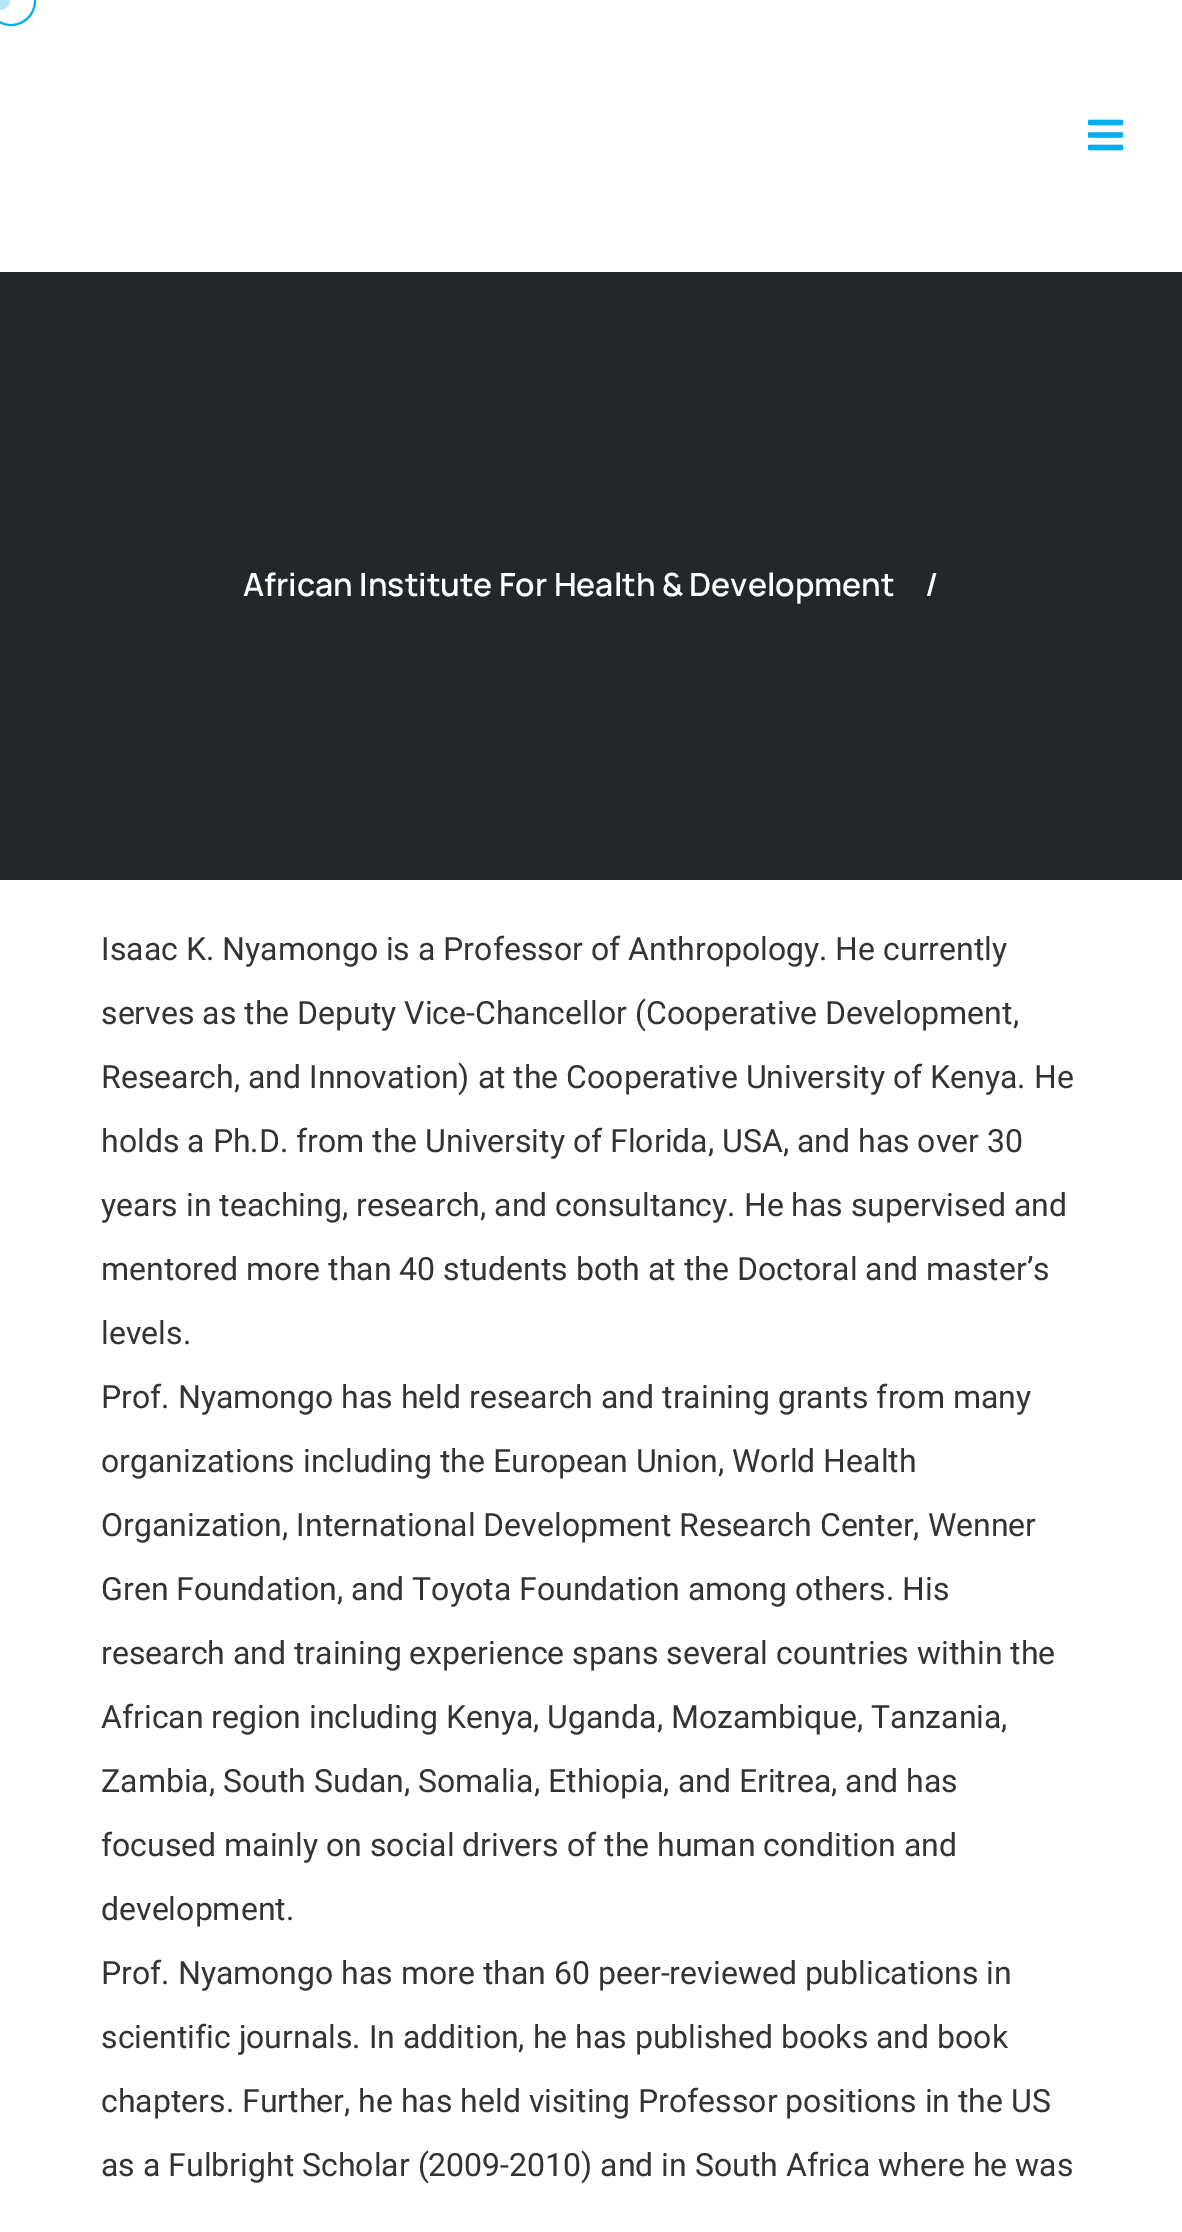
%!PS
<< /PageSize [1182 2232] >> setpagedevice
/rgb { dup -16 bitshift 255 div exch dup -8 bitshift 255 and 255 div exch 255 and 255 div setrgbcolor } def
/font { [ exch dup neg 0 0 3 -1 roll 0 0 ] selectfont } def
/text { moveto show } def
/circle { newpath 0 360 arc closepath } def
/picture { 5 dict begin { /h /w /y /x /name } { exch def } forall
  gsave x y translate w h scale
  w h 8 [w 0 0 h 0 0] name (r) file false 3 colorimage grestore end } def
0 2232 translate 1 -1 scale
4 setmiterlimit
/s1 { /Manrope-SemiBold 32 font 16#FFFFFF rgb } def
/s2 { /Roboto-Regular 32 font 16#333333 rgb } def
16#FFFFFF rgb
0 0 1182 2232 rectfill
16#01ADEC rgb
2 setlinewidth
11 1 24 circle stroke
16#B3E6F9 rgb
0 0 10 circle fill
(pic1.raw) 1088 119 35 32 picture
16#22272A rgb
0 272 1182 608 rectfill
s1
(African Institute For Health & Development) 243 596 text
(/) 925 596 text
s2
(Isaac K. Nyamongo is a Professor of Anthropology. He currently) 101 960 text
(serves as the Deputy Vice-Chancellor \(Cooperative Development,) 101 1024 text
(Research, and Innovation\) at the Cooperative University of Kenya. He) 101 1088 text
(holds a Ph.D. from the University of Florida, USA, and has over 30) 101 1152 text
(years in teaching, research, and consultancy. He has supervised and) 101 1216 text
(mentored more than 40 students both at the Doctoral and master’s) 101 1280 text
(levels.) 101 1344 text
(Prof. Nyamongo has held research and training grants from many) 101 1408 text
(organizations including the European Union, World Health) 101 1472 text
(Organization, International Development Research Center, Wenner) 101 1536 text
(Gren Foundation, and Toyota Foundation among others. His) 101 1600 text
(research and training experience spans several countries within the) 101 1664 text
(African region including Kenya, Uganda, Mozambique, Tanzania,) 101 1728 text
(Zambia, South Sudan, Somalia, Ethiopia, and Eritrea, and has) 101 1792 text
(focused mainly on social drivers of the human condition and) 101 1856 text
(development.) 101 1920 text
(Prof. Nyamongo has more than 60 peer-reviewed publications in) 101 1984 text
(scientific journals. In addition, he has published books and book) 101 2048 text
(chapters. Further, he has held visiting Professor positions in the US) 101 2112 text
(as a Fulbright Scholar \(2009-2010\) and in South Africa where he was) 101 2176 text
showpage
